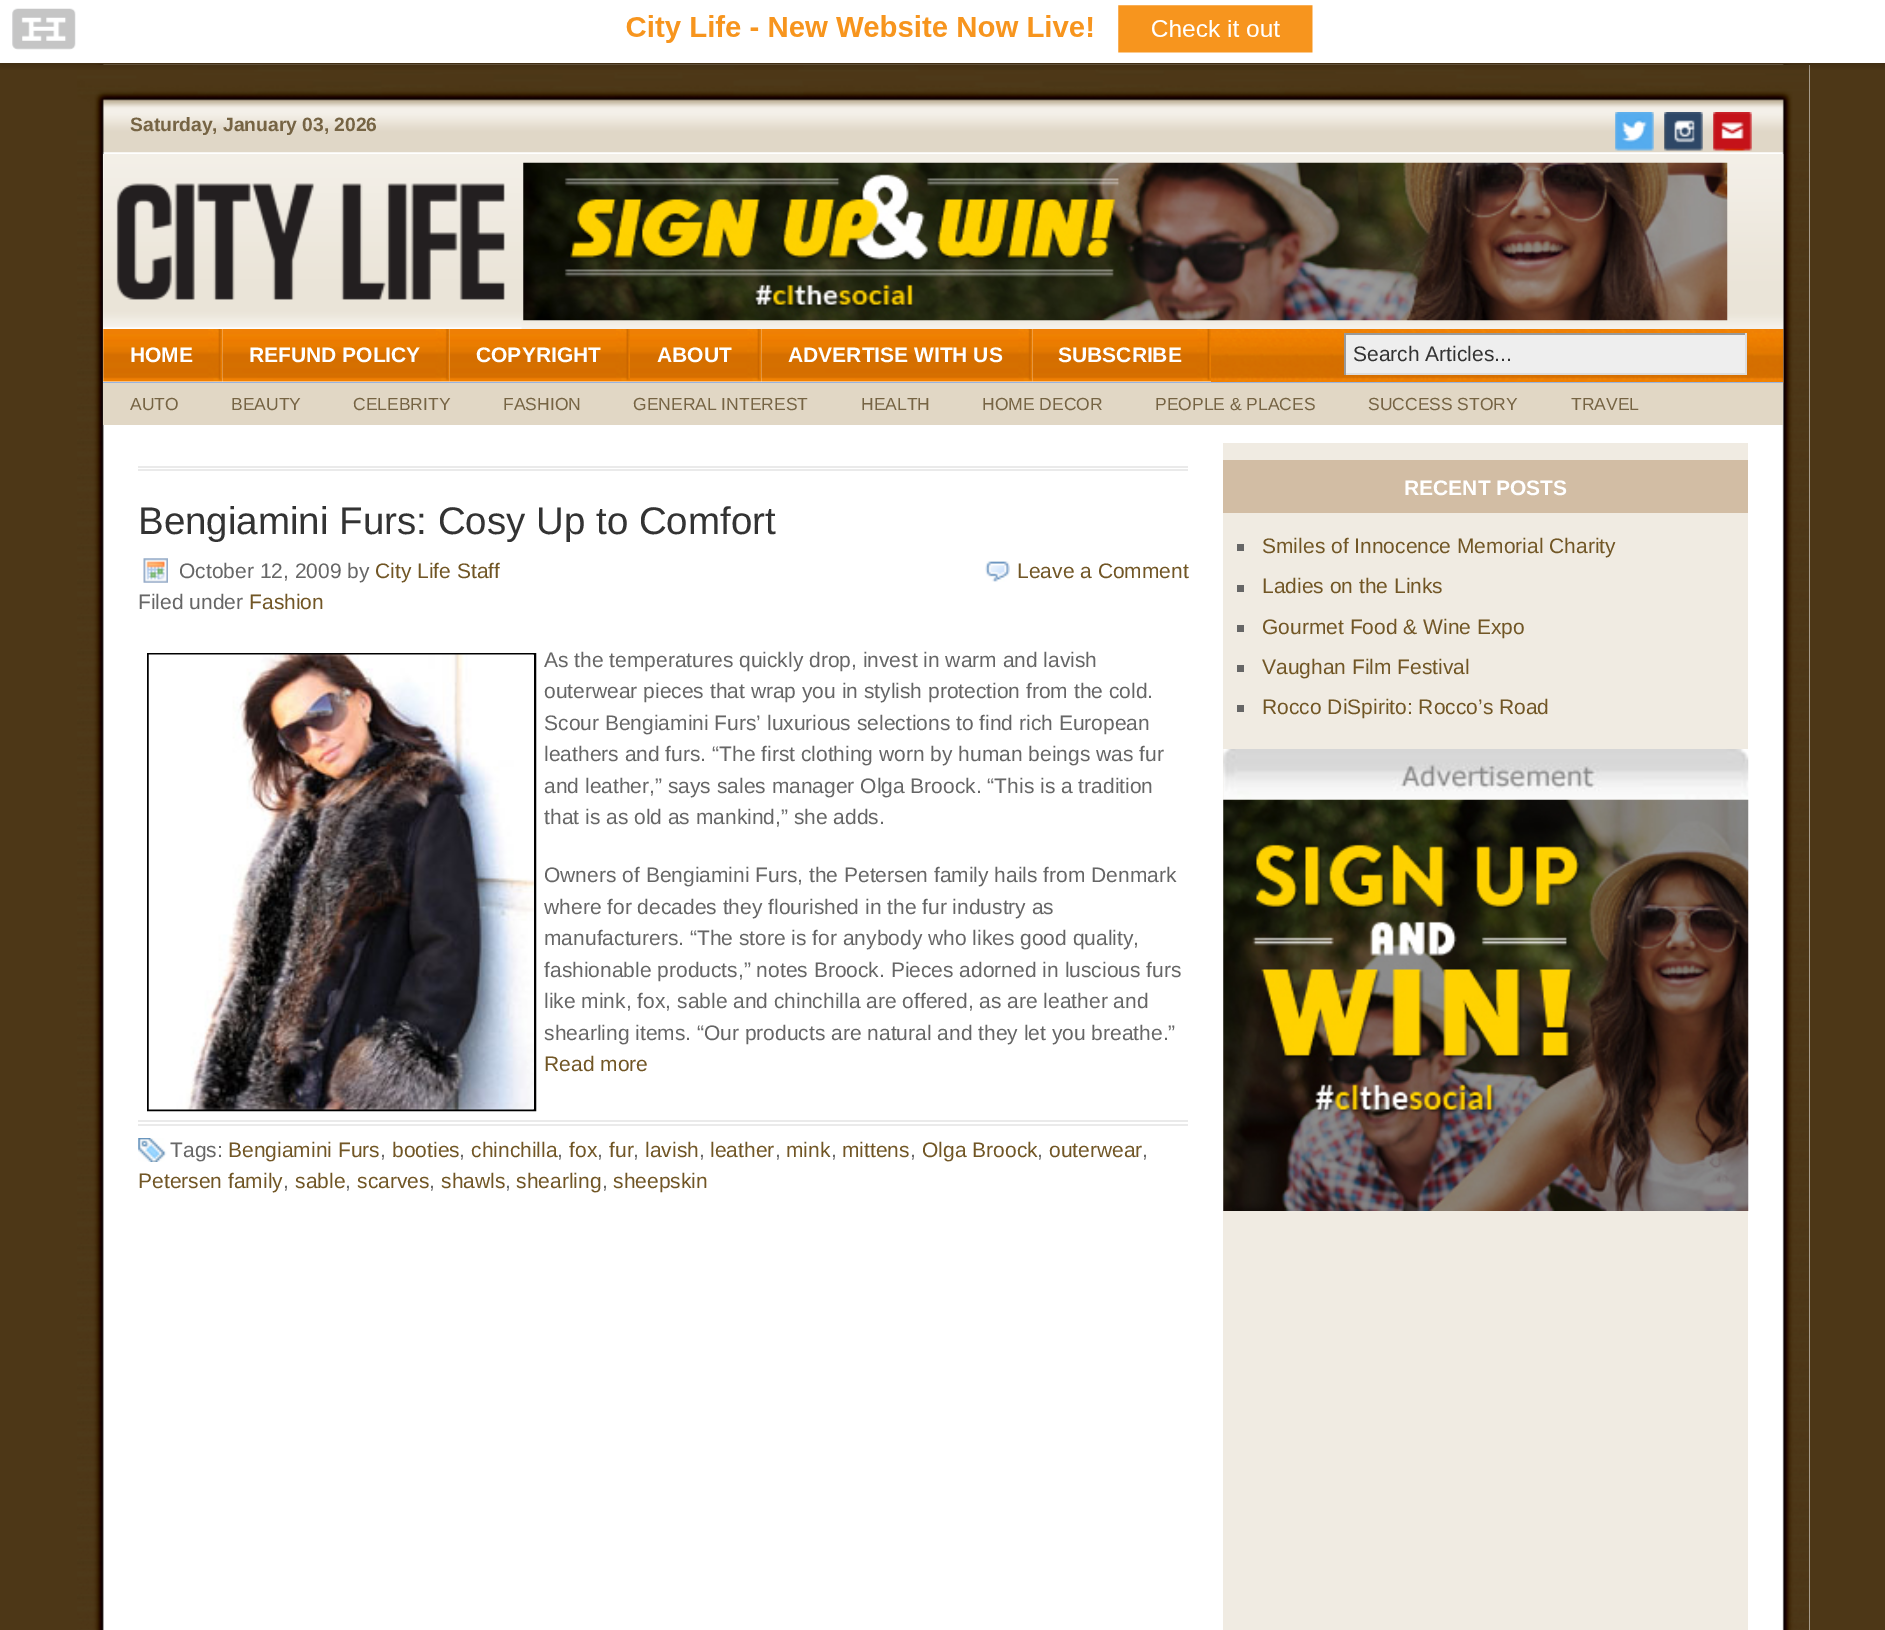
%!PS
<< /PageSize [1885 1630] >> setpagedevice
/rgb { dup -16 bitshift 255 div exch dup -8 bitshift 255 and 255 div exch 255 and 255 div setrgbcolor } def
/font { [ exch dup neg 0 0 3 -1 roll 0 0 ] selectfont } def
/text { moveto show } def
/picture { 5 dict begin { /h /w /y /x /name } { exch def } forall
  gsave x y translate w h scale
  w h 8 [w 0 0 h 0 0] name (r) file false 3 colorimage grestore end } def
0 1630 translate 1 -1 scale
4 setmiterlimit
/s1 { /LiberationSans-Bold 19.25 font 16#766444 rgb } def
/s2 { /LiberationSans-Bold 21 font 16#FFFFFF rgb } def
/s3 { /LiberationSans-Regular 21 font 16#333333 rgb } def
/s4 { /LiberationSans-Regular 17.5 font 16#766444 rgb } def
/s5 { /LiberationSans-Regular 38.5 font 16#333333 rgb } def
/s6 { /LiberationSans-Regular 21 font 16#666666 rgb } def
/s7 { /LiberationSans-Regular 21 font 16#715625 rgb } def
16#4D3717 rgb
0 0 1885 1630 rectfill
16#FFFFFF rgb
1809 152 1 1478 rectfill
(pic2.raw) 77 64 1733 1566 picture
1809 65 1 87 rectfill
(pic3.raw) 77 64 1733 89 picture
(pic1.raw) 0 0 1885 70 picture
s1
(Saturday, January 03, 2026) 130 131 text
(pic4.raw) 1615 112 39 39 picture
(pic5.raw) 1664 112 39 39 picture
(pic6.raw) 1713 112 39 39 picture
(pic7.raw) 103 154 1681 175 picture
(pic8.raw) 103 178 419 151 picture
(pic9.raw) 523 162 1205 159 picture
(pic10.raw) 1211 329 573 55 picture
16#98B4E0 rgb
103 382 1680 1 rectfill
16#FFFFFF rgb
103 329 1 53 rectfill
(pic11.raw) 103 329 119 53 picture
s2
(HOME) 130 362 text
(pic12.raw) 222 329 228 53 picture
(REFUND POLICY) 249 362 text
(pic13.raw) 449 329 181 53 picture
(COPYRIGHT) 476 362 text
(pic14.raw) 630 329 131 53 picture
(ABOUT) 657 362 text
(pic15.raw) 761 329 272 53 picture
(ADVERTISE WITH US) 788 362 text
(pic16.raw) 1032 329 179 53 picture
(SUBSCRIBE) 1058 362 text
16#EEEEEE rgb
1346 335 399 38 rectfill
16#999999 rgb
1344 333 403 2 rectfill
16#DDDDDD rgb
1745 333 2 42 rectfill
1344 373 403 2 rectfill
16#999999 rgb
1344 333 2 42 rectfill
s3
(Search Articles...) 1353 361 text
16#E1D7C5 rgb
103 383 1680 42 rectfill
s4
(AUTO) 130 410 text
(BEAUTY) 231 410 text
(CELEBRITY) 353 410 text
(FASHION) 503 410 text
(GENERAL INTEREST) 633 410 text
(HEALTH) 861 410 text
(HOME DECOR) 982 410 text
(PEOPLE & PLACES) 1155 410 text
(SUCCESS STORY) 1368 410 text
(TRAVEL) 1571 410 text
16#EAEAEA rgb
138 466 1050 2 rectfill
138 469 1050 2 rectfill
s5
(Bengiamini Furs: Cosy Up to Comfort) 138 534 text
(pic17.raw) 143 558 25 25 picture
s6
(October 12, 2009 by) 179 578 text
s7
(City Life Staff) 375 578 text
s6
(Filed under) 138 609 text
s7
(Fashion) 249 609 text
(pic18.raw) 985 561 25 21 picture
(Leave a Comment) 1017 578 text
16#000000 rgb
2 setlinewidth
148 654 387 456 rectstroke
(pic19.raw) 148 654 386 456 picture
s6
(As the temperatures quickly drop, invest in warm and lavish) 544 667 text
(outerwear pieces that wrap you in stylish protection from the cold.) 544 698 text
(Scour Bengiamini Furs’ luxurious selections to find rich European) 544 730 text
(leathers and furs. “The first clothing worn by human beings was fur) 544 761 text
(and leather,” says sales manager Olga Broock. “This is a tradition) 544 793 text
(that is as old as mankind,” she adds.) 544 824 text
(Owners of Bengiamini Furs, the Petersen family hails from Denmark) 544 882 text
(where for decades they flourished in the fur industry as) 544 914 text
(manufacturers. “The store is for anybody who likes good quality,) 544 945 text
(fashionable products,” notes Broock. Pieces adorned in luscious furs) 544 977 text
(like mink, fox, sable and chinchilla are offered, as are leather and) 544 1008 text
(shearling items. “Our products are natural and they let you breathe.”) 544 1040 text
s7
(Read more) 544 1071 text
16#EAEAEA rgb
138 1120 1050 2 rectfill
138 1124 1050 2 rectfill
(pic20.raw) 138 1138 29 24 picture
s6
(Tags:) 170 1157 text
s7
(Bengiamini Furs) 228 1157 text
s6
(,) 380 1157 text
s7
(booties) 392 1157 text
s6
(,) 459 1157 text
s7
(chinchilla) 471 1157 text
s6
(,) 557 1157 text
s7
(fox) 569 1157 text
s6
(,) 597 1157 text
s7
(fur) 609 1157 text
s6
(,) 633 1157 text
s7
(lavish) 645 1157 text
s6
(,) 699 1157 text
s7
(leather) 710 1157 text
s6
(,) 775 1157 text
s7
(mink) 786 1157 text
s6
(,) 831 1157 text
s7
(mittens) 842 1157 text
s6
(,) 910 1157 text
s7
(Olga Broock) 922 1157 text
s6
(,) 1037 1157 text
s7
(outerwear) 1049 1157 text
s6
(,) 1142 1157 text
s7
(Petersen family) 138 1188 text
s6
(,) 283 1188 text
s7
(sable) 295 1188 text
s6
(,) 345 1188 text
s7
(scarves) 357 1188 text
s6
(,) 429 1188 text
s7
(shawls) 441 1188 text
s6
(,) 505 1188 text
s7
(shearling) 516 1188 text
s6
(,) 602 1188 text
s7
(sheepskin) 613 1188 text
16#F0EBE2 rgb
1223 443 525 1187 rectfill
16#D2BDA4 rgb
1223 460 525 53 rectfill
s2
(RECENT POSTS) 1404 495 text
16#666666 rgb
1237 544 7 7 rectfill
s7
(Smiles of Innocence Memorial Charity) 1262 553 text
16#666666 rgb
1237 585 7 7 rectfill
s7
(Ladies on the Links) 1262 593 text
16#666666 rgb
1237 625 7 7 rectfill
s7
(Gourmet Food & Wine Expo) 1262 634 text
16#666666 rgb
1237 665 7 7 rectfill
s7
(Vaughan Film Festival) 1262 674 text
16#666666 rgb
1237 705 7 7 rectfill
s7
(Rocco DiSpirito: Rocco’s Road) 1262 714 text
(pic21.raw) 1223 749 526 51 picture
(pic22.raw) 1223 799 526 412 picture
showpage
